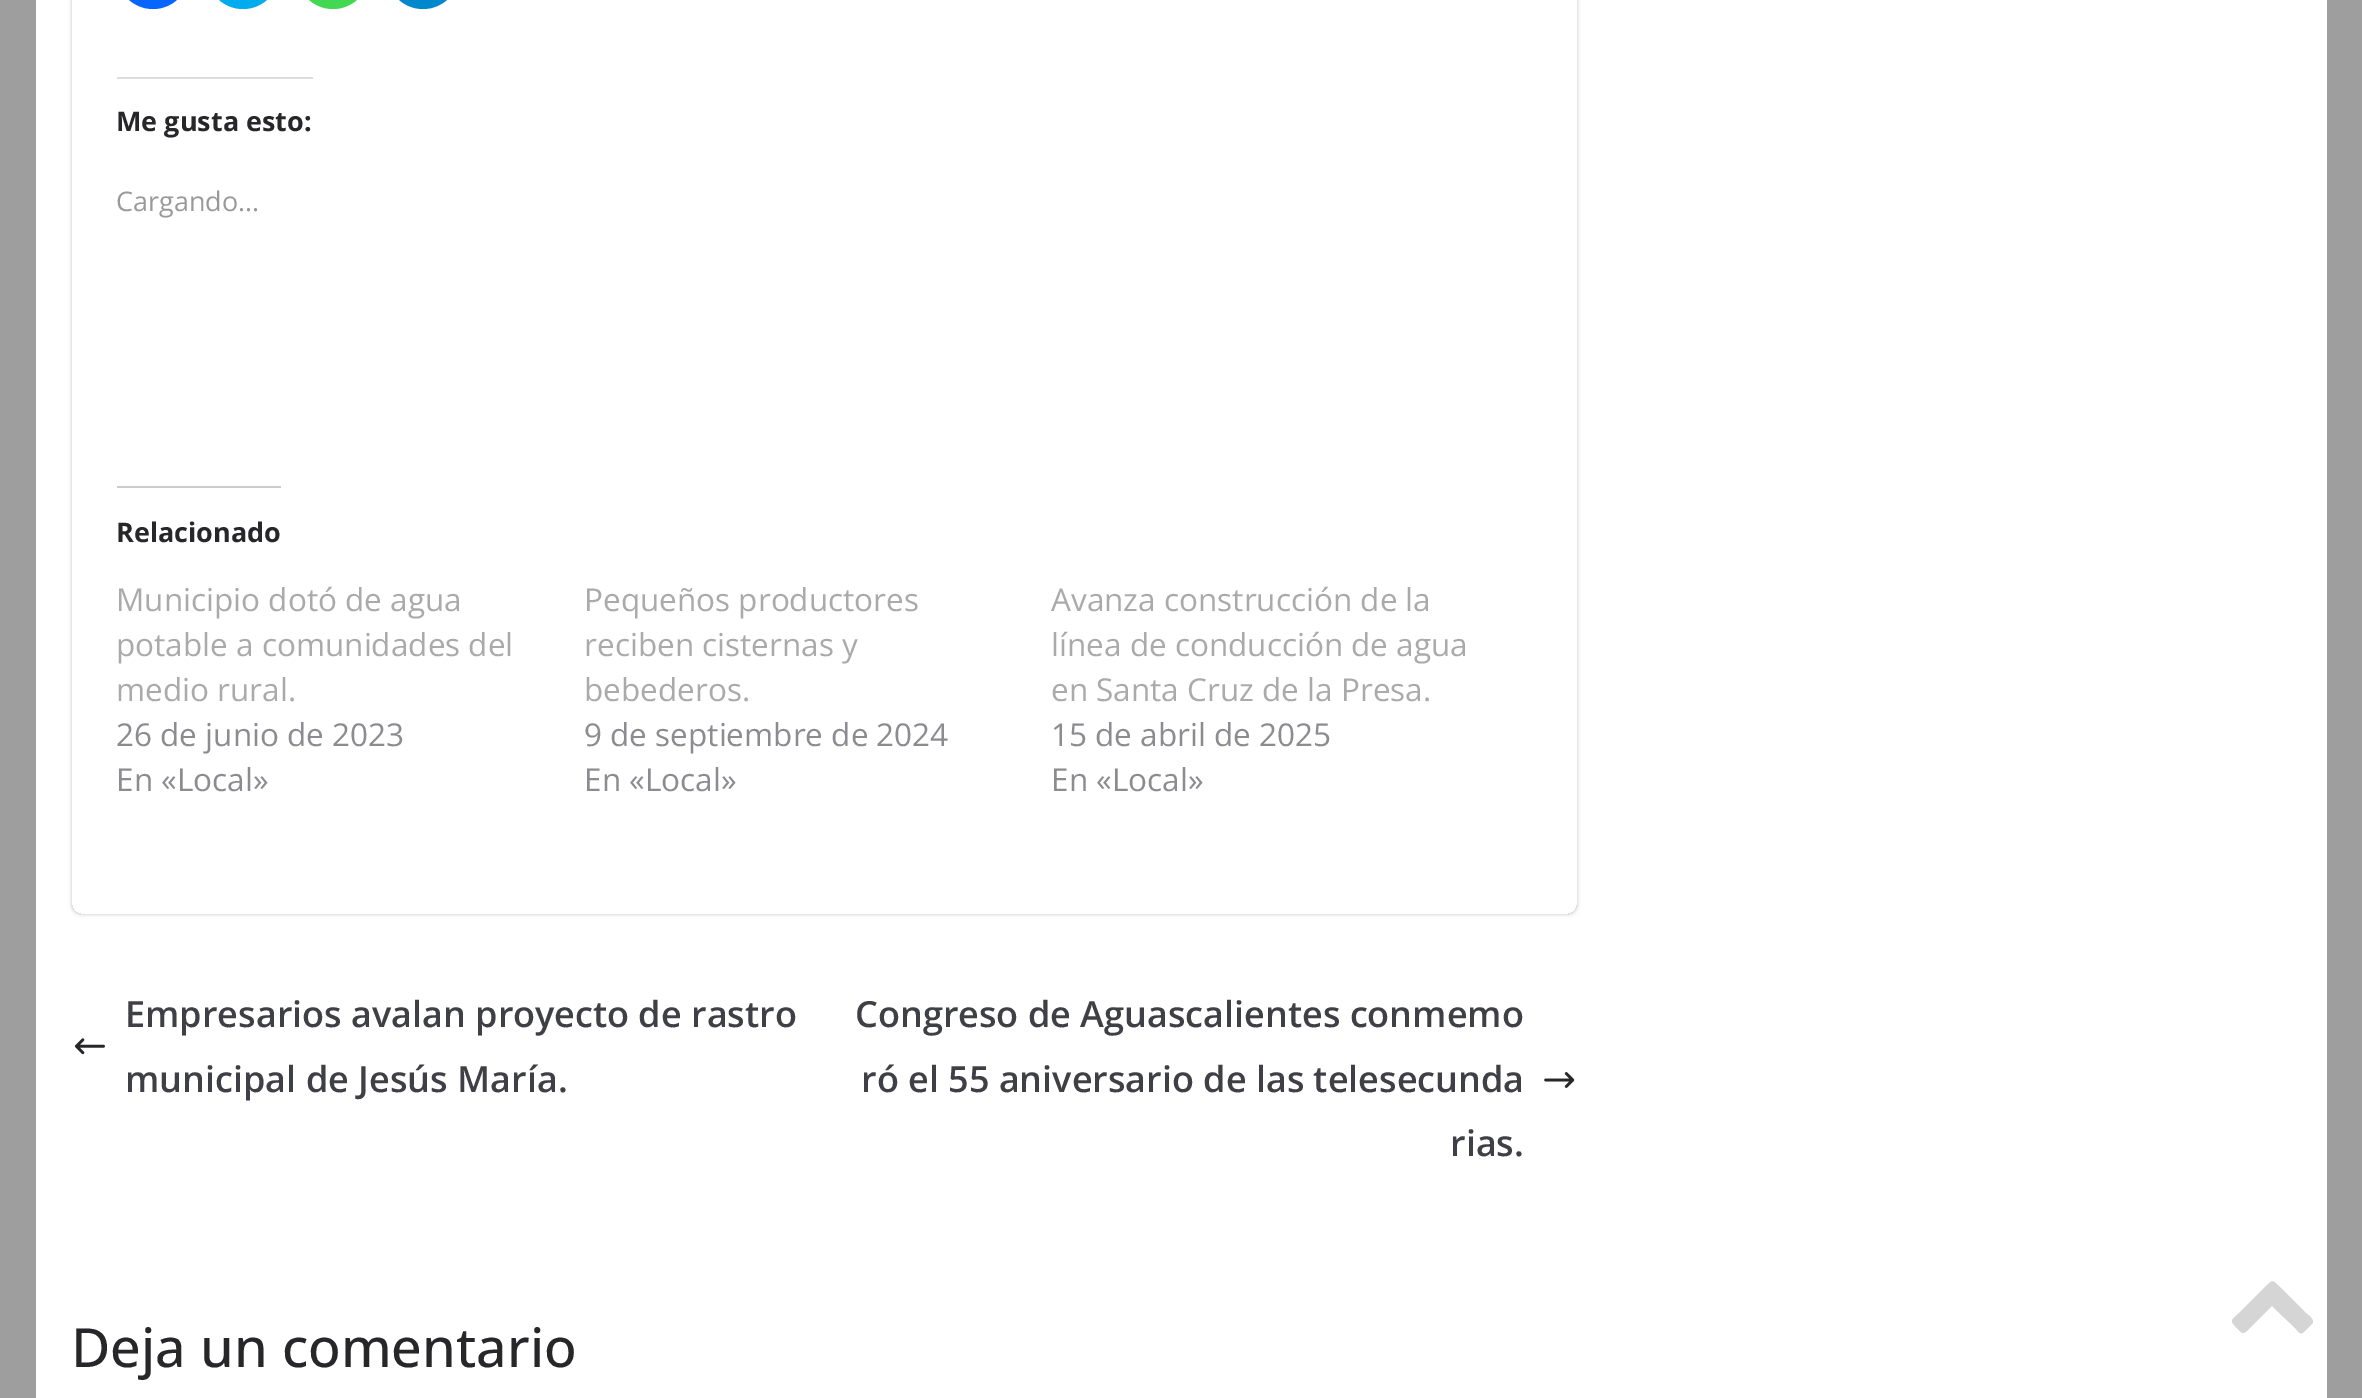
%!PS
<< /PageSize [2362 1398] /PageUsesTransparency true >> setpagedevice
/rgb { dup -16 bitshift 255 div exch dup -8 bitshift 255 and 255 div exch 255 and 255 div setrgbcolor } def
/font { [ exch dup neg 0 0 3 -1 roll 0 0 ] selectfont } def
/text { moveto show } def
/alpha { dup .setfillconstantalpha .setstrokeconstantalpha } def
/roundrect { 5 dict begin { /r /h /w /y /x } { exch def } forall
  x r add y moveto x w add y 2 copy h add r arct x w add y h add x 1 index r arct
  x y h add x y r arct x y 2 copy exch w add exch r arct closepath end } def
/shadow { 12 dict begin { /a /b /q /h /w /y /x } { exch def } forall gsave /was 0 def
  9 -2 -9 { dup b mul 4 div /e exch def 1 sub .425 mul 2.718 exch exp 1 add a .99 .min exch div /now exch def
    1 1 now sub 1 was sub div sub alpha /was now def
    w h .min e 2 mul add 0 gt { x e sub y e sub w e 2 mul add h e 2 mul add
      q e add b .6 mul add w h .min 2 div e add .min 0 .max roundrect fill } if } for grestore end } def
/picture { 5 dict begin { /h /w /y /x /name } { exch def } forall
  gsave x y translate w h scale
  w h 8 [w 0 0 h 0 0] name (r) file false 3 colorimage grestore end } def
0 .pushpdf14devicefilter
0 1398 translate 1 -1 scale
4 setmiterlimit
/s1 { /OpenSans-Bold 27 font 16#27272A rgb } def
/s2 { /OpenSans-Regular 27 font 16#999999 rgb } def
/s3 { /OpenSans-Regular 31.5 font 16#AAAAAA rgb } def
/s4 { /OpenSans-Regular 31.5 font 16#8C8C90 rgb } def
/s5 { /OpenSans-SemiBold 36 font 16#3F3F46 rgb } def
/s6 { /OpenSans-Medium 54 font 16#27272A rgb } def
16#9E9E9E rgb
0 0 2362 1398 rectfill
16#FFFFFF rgb
36 0 2291 1398 rectfill
gsave
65 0 moveto 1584 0 lineto 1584 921 lineto 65 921 lineto closepath 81 -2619 moveto 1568 -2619 lineto 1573 -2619 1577 -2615 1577 -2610 curveto 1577 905 lineto 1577 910 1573 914 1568 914 curveto 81 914 lineto 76 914 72 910 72 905 curveto 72 -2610 lineto 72 -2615 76 -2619 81 -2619 curveto closepath eoclip newpath
16#000000 rgb
72 -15 1505 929 9 2 0.24 shadow
grestore
16#0866FF rgb
117 -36 72 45 36 roundrect fill
16#00ACEE rgb
207 -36 72 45 36 roundrect fill
16#43D854 rgb
297 -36 72 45 36 roundrect fill
16#0088CC rgb
387 -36 72 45 36 roundrect fill
16#DCDCDE rgb
117 77 196 2 rectfill
s1
(Me gusta esto:) 116 131 text
s2
(Cargando...) 116 211 text
16#CCCCCC rgb
117 486 164 2 rectfill
s1
(Relacionado) 116 542 text
s3
(Municipio dotó de agua) 116 611 text
(potable a comunidades del) 116 656 text
(medio rural.) 116 701 text
s4
(26 de junio de 2023) 116 746 text
(En «Local») 116 791 text
s3
(Pequeños productores) 584 611 text
(reciben cisternas y) 584 656 text
(bebederos.) 584 701 text
s4
(9 de septiembre de 2024) 584 746 text
(En «Local») 584 791 text
s3
(Avanza construcción de la) 1051 611 text
(línea de conducción de agua) 1051 656 text
(en Santa Cruz de la Presa.) 1051 701 text
s4
(15 de abril de 2025) 1051 746 text
(En «Local») 1051 791 text
s5
(Empresarios avalan proyecto de rastro) 125 1027 text
(pic1.raw) 74 1038 31 17 picture
(municipal de Jesús María.) 125 1092 text
(Congreso de Aguascalientes conmemo) 855 1027 text
(ró el 55 aniversario de las telesecunda) 861 1092 text
(pic2.raw) 1544 1072 31 16 picture
(rias.) 1450 1156 text
s6
(Deja un comentario) 71 1367 text
16#D5D5D5 rgb
2312 1324 moveto 2305 1331 lineto 2300 1336 2299 1332 2295 1328 curveto 2272 1306 lineto 2250 1328 lineto 2242 1336 2243 1334 2234 1325 curveto 2229 1320 2234 1318 2239 1313 curveto 2264 1288 lineto 2274 1279 2271 1279 2281 1288 curveto 2306 1313 lineto 2307 1314 2316 1320 2312 1324 curveto closepath fill
.poppdf14devicefilter showpage
